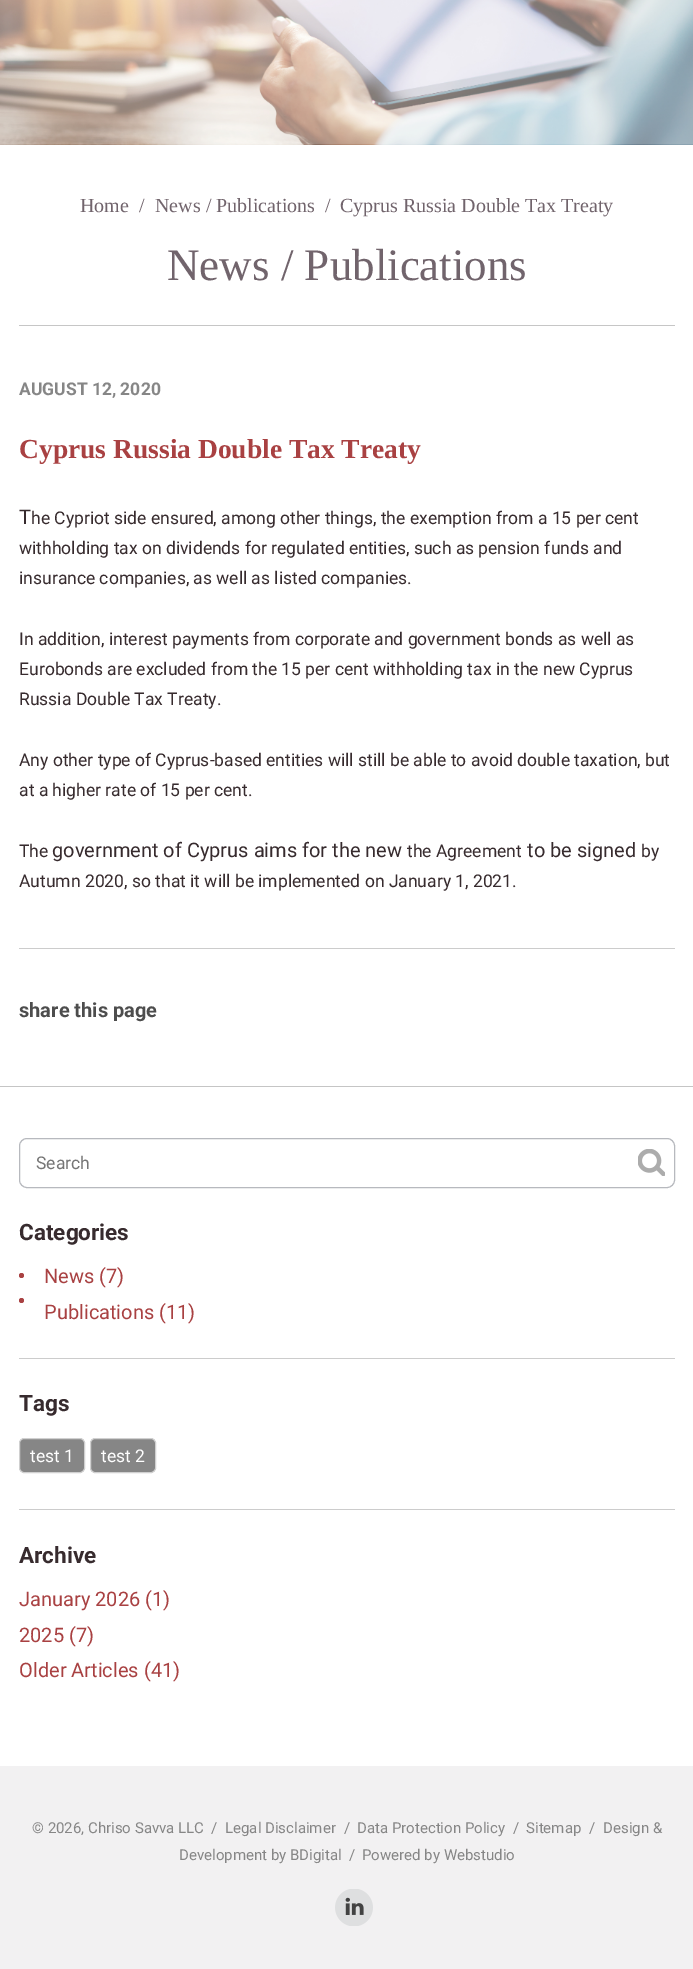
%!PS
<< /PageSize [693 1969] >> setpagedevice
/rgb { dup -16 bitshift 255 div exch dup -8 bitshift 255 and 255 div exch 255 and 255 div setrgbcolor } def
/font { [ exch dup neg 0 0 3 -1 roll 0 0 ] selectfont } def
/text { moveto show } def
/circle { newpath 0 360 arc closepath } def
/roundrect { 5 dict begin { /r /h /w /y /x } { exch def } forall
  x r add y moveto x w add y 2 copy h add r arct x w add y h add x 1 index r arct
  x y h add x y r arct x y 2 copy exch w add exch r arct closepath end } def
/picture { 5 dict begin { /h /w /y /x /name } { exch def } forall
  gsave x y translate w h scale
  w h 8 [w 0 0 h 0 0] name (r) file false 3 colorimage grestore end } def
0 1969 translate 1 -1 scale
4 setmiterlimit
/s1 { /LiberationSerif-Regular 20 font 16#71646C rgb } def
/s2 { /LiberationSerif-Regular 45 font 16#71646C rgb } def
/s3 { /Roboto-Bold 17.5 font 16#868686 rgb } def
/s4 { /LiberationSerif-Bold 27.5 font 16#A94142 rgb } def
/s5 { /Roboto-Regular 20 font 16#372B2E rgb } def
/s6 { /Roboto-Regular 17.5 font 16#372B2E rgb } def
/s7 { /Roboto-Bold 20 font 16#4D4D4D rgb } def
/s8 { /Roboto-Regular 17.5 font 16#757575 rgb } def
/s9 { /Roboto-Bold 22.5 font 16#372B2E rgb } def
/s10 { /Roboto-Regular 20 font 16#A94142 rgb } def
/s11 { /Roboto-Regular 17.5 font 16#FFFFFF rgb } def
/s12 { /Roboto-Regular 15 font 16#868686 rgb } def
16#FFFFFF rgb
0 0 693 1969 rectfill
(pic1.raw) 0 0 693 145 picture
s1
(Home) 80 212 text
(/) 139 212 text
(News / Publications) 155 212 text
(/) 325 212 text
(Cyprus Russia Double Tax Treaty) 340 212 text
16#C6C6C6 rgb
19 325 656 1 rectfill
s2
(News / Publications) 167 280 text
s3
(AUGUST 12, 2020) 19 395 text
s4
(Cyprus Russia Double Tax Treaty) 19 458 text
s5
(T) 19 524 text
s6
(he Cypriot side ensured, among other things, the exemption from a 15 per cent) 31 524 text
(withholding tax on dividends for regulated entities, such as pension funds and) 19 554 text
(insurance companies, as well as listed companies.) 19 584 text
(In addition, interest payments from corporate and government bonds as well as) 19 645 text
(Eurobonds are excluded from the 15 per cent withholding tax in the new Cyprus) 19 675 text
(Russia Double Tax Treaty.) 19 705 text
(Any other type of Cyprus-based entities will still be able to avoid double taxation, but) 19 766 text
(at a higher rate of 15 per cent.) 19 796 text
(The) 19 857 text
s5
(government of Cyprus aims for the new) 52 857 text
s6
(the Agreement) 407 857 text
s5
(to be signed) 527 857 text
s6
(by) 641 857 text
(Autumn 2020, so that it will be implemented on January 1, 2021.) 19 887 text
16#CCCCCC rgb
19 948 656 1 rectfill
s7
(share this page) 19 1017 text
16#C5C5C5 rgb
0 1086 693 1 rectfill
16#B7B9BE rgb
19.5 1138.5 655 49 7.5 roundrect stroke
s8
(Search) 36 1169 text
(pic2.raw) 638 1149 27 27 picture
16#CCCCCC rgb
19 1358 656 1 rectfill
s9
(Categories) 19 1240 text
16#A94142 rgb
21.5 1275.5 2.5 circle fill
s10
(News \(7\)) 44 1283 text
21.5 1300.5 2.5 circle fill
(Publications \(11\)) 44 1319 text
16#CCCCCC rgb
19 1509 656 1 rectfill
s9
(Tags) 19 1411 text
16#868686 rgb
19.5 1438.5 65 34 4.5 roundrect gsave fill grestore
16#D0D0D0 rgb
stroke
s11
(test 1) 30 1462 text
16#868686 rgb
90.5 1438.5 65 34 4.5 roundrect gsave fill grestore
16#D0D0D0 rgb
stroke
s11
(test 2) 101 1462 text
s9
(Archive) 19 1563 text
s10
(January 2026 \(1\)) 19 1606 text
(2025 \(7\)) 19 1642 text
(Older Articles \(41\)) 19 1677 text
16#F2F1F2 rgb
0 1766 693 203 rectfill
s12
(© 2026, Chriso Savva LLC  /) 32 1833 text
(Legal Disclaimer) 225 1833 text
(/) 344 1833 text
(Data Protection Policy) 357 1833 text
(/) 513 1833 text
(Sitemap) 526 1833 text
(/) 589 1833 text
(Design &) 603 1833 text
(Development by BDigital) 179 1860 text
(/) 349 1860 text
(Powered by Webstudio) 362 1860 text
(pic3.raw) 335 1889 38 37 picture
showpage
